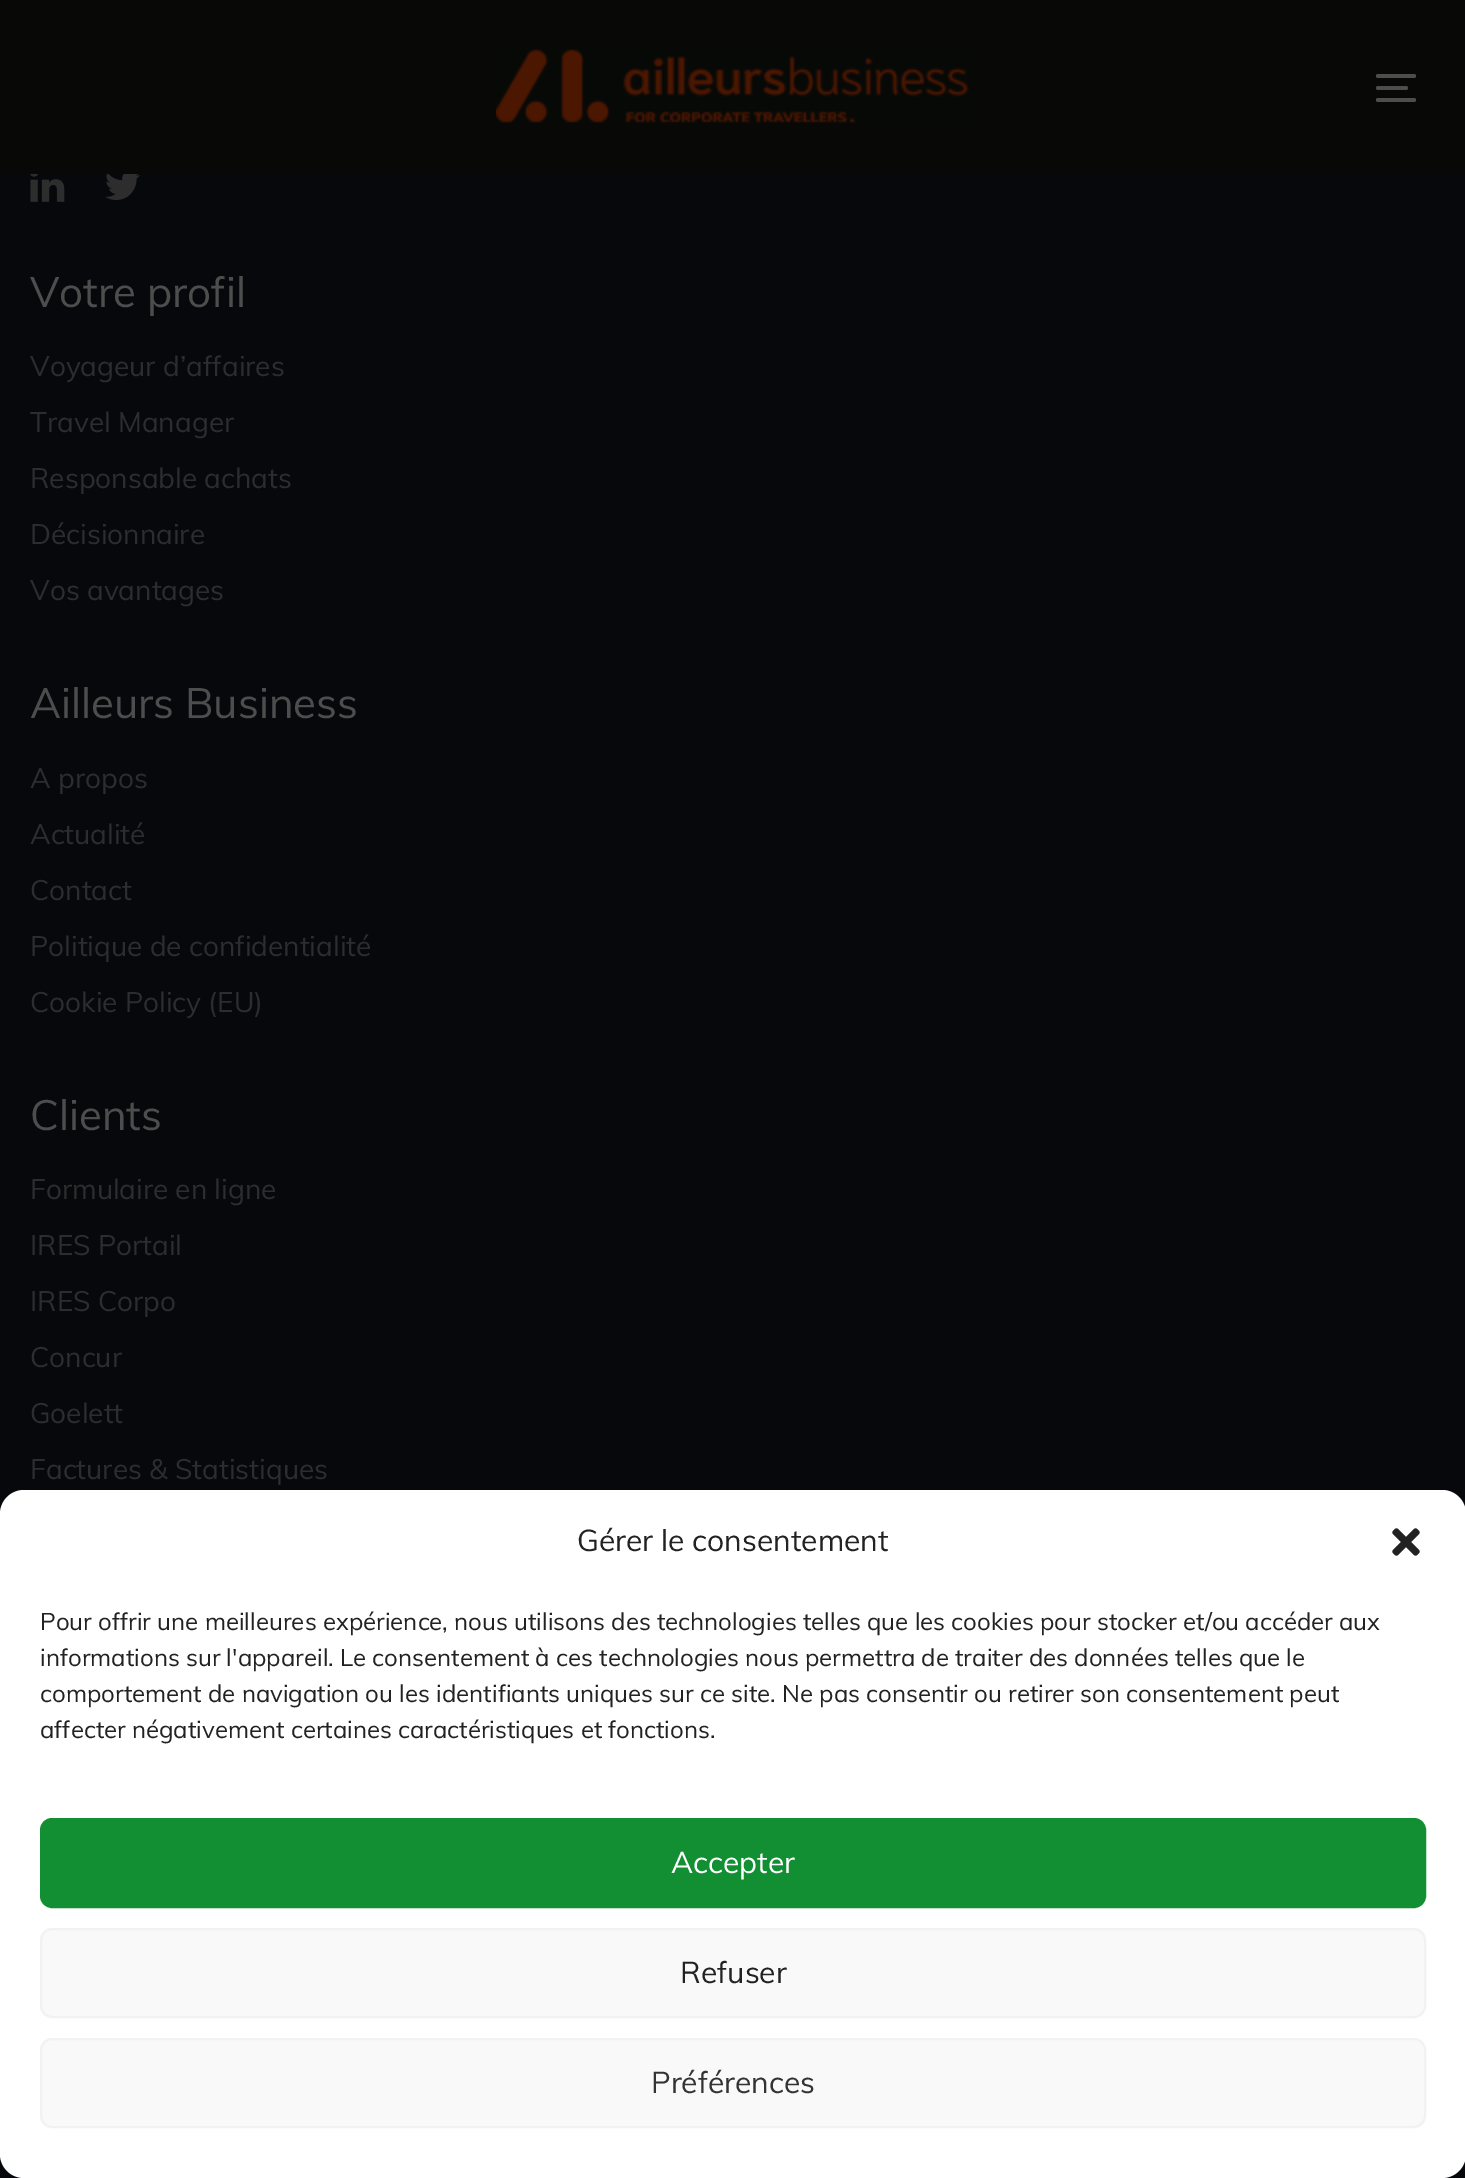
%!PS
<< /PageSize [1465 2178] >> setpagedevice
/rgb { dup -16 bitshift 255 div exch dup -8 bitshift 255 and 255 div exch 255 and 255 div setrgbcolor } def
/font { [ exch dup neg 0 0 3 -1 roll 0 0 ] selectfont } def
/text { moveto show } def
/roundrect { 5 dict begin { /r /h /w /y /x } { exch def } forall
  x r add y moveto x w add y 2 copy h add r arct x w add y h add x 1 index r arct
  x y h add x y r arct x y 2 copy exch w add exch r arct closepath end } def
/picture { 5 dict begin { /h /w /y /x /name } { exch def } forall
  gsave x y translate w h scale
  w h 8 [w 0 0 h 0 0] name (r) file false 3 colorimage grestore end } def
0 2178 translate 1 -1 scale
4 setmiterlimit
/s1 { /Muli-Regular 42 font 16#4D4D4D rgb } def
/s2 { /Muli-Regular 28 font 16#2D2D2F rgb } def
/s3 { /Muli-Regular 30 font 16#222222 rgb } def
/s4 { /Muli-Regular 24 font 16#222222 rgb } def
/s5 { /Muli-Regular 30 font 16#FFFFFF rgb } def
/s6 { /Muli-Regular 30 font 16#333333 rgb } def
16#07080C rgb
0 0 1465 2178 rectfill
16#080907 rgb
0 0 1465 174 rectfill
(pic1.raw) 496 49 473 74 picture
16#4D4D4D rgb
1376 74 40 4 2 roundrect fill
1376 86 32 4 2 roundrect fill
1376 98 40 4 2 roundrect fill
(pic2.raw) 30 174 35 28 picture
(pic3.raw) 105 174 35 26 picture
s1
(Votre profil) 30 307 text
s2
(Voyageur d’affaires) 30 376 text
(Travel Manager) 30 432 text
(Responsable achats) 30 488 text
(Décisionnaire) 30 544 text
(Vos avantages) 30 600 text
s1
(Ailleurs Business) 30 718 text
s2
(A propos) 30 788 text
(Actualité) 30 844 text
(Contact) 30 900 text
(Politique de confidentialité) 30 956 text
(Cookie Policy \(EU\)) 30 1012 text
s1
(Clients) 30 1130 text
s2
(Formulaire en ligne) 30 1199 text
(IRES Portail) 30 1255 text
(IRES Corpo) 30 1311 text
(Concur) 30 1367 text
(Goelett) 30 1423 text
(Factures & Statistiques) 30 1479 text
16#FFFFFF rgb
0 1490 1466 688 24 roundrect fill
s3
(Gérer le consentement) 577 1551 text
(pic4.raw) 1392 1528 28 28 picture
s4
(Pour offrir une meilleures expérience, nous utilisons des technologies telles que les cookies pour stocker et/ou accéder aux) 40 1630 text
(informations sur l'appareil. Le consentement à ces technologies nous permettra de traiter des données telles que le) 40 1666 text
(comportement de navigation ou les identifiants uniques sur ce site. Ne pas consentir ou retirer son consentement peut) 40 1702 text
(affecter négativement certaines caractéristiques et fonctions.) 40 1738 text
16#128E33 rgb
41 1819 1384 88 11 roundrect gsave fill grestore
2 setlinewidth
stroke
s5
(Accepter) 671 1873 text
16#F9F9F9 rgb
41 1929 1384 88 11 roundrect gsave fill grestore
16#F2F2F2 rgb
stroke
s3
(Refuser) 680 1983 text
16#F9F9F9 rgb
41 2039 1384 88 11 roundrect gsave fill grestore
16#F2F2F2 rgb
stroke
s6
(Préférences) 651 2093 text
showpage
